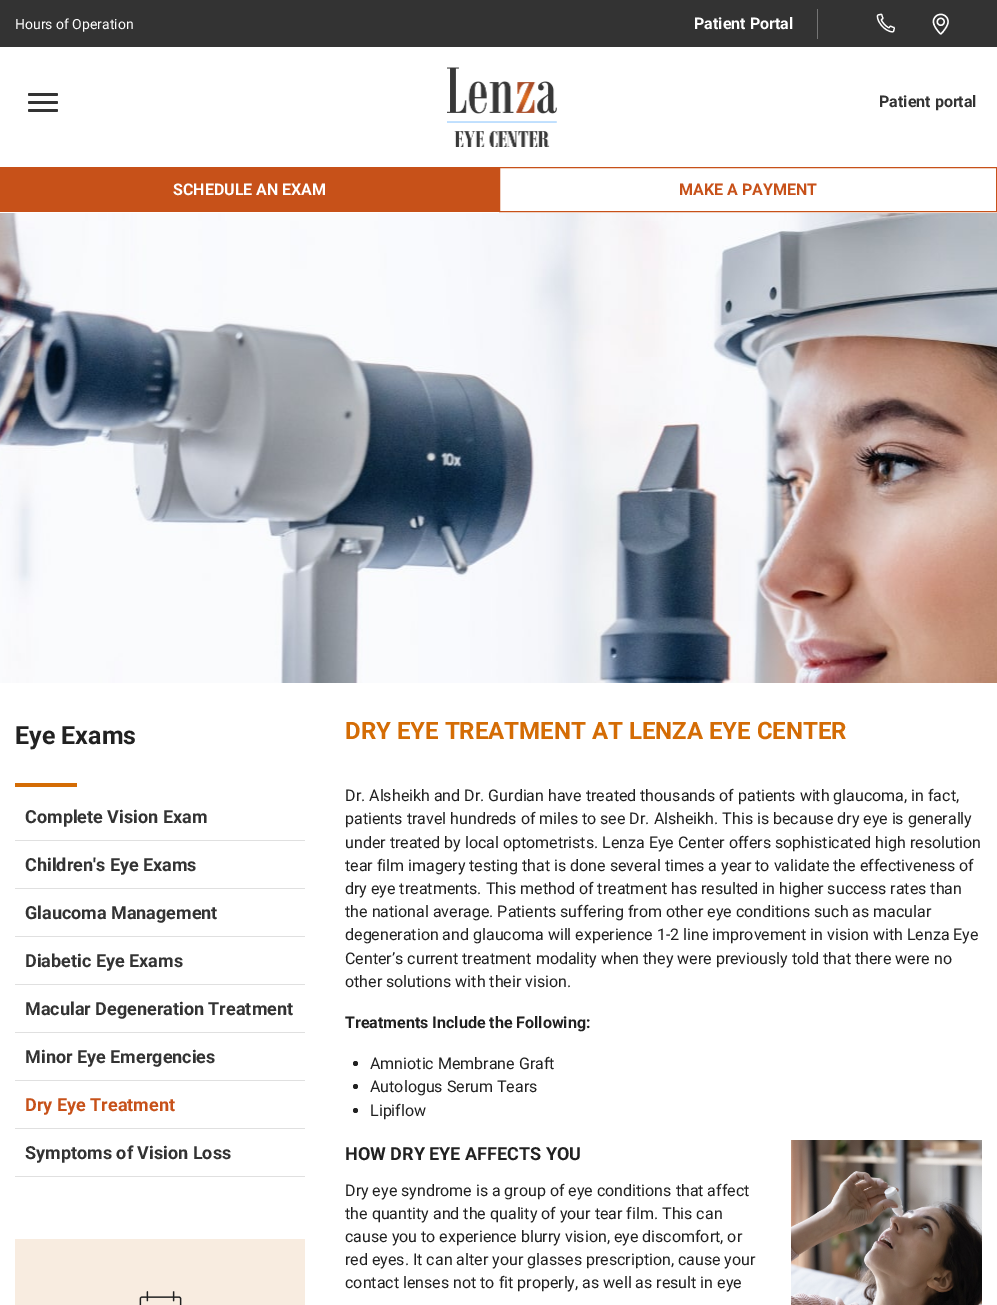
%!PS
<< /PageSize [997 1305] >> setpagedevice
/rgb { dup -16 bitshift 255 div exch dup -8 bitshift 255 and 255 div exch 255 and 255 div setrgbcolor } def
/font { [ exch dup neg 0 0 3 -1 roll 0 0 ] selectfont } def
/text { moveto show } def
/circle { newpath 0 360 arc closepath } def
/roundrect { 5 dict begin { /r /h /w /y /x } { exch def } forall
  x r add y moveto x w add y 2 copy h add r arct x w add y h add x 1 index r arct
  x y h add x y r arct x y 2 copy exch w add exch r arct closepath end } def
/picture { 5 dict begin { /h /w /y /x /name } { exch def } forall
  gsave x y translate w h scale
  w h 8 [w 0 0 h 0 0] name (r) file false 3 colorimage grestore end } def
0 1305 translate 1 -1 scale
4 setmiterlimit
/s1 { /Roboto-Regular 14 font 16#FFFFFF rgb } def
/s2 { /Roboto-Bold 16 font 16#FFFFFF rgb } def
/s3 { /Roboto-Bold 16 font 16#333333 rgb } def
/s4 { /Roboto-Bold 16 font 16#C75119 rgb } def
/s5 { /Roboto-Bold 25 font 16#212121 rgb } def
/s6 { /Roboto-Bold 18 font 16#333333 rgb } def
/s7 { /Roboto-Bold 18 font 16#C75119 rgb } def
/s8 { /Roboto-Bold 24 font 16#D46C05 rgb } def
/s9 { /Roboto-Regular 16 font 16#212121 rgb } def
/s10 { /Roboto-Bold 16 font 16#212121 rgb } def
/s11 { /Roboto-Bold 18 font 16#212121 rgb } def
16#FFFFFF rgb
0 0 997 1305 rectfill
16#333333 rgb
0 0 997 47 rectfill
s1
(Hours of Operation) 15 29 text
s2
(Patient Portal) 694 29 text
16#757575 rgb
817 9 1 30 rectfill
(pic1.raw) 876 13 19 20 picture
(pic2.raw) 932 13 17 22 picture
16#333333 rgb
28 101 30 3 1.5 roundrect fill
28 93 30 3 1.5 roundrect fill
28 109 30 3 1.5 roundrect fill
(pic3.raw) 447 67 110 80 picture
(Patient portal) 879 107 text
16#C75119 rgb
0 167 499 45 rectfill
s2
(SCHEDULE AN EXAM) 173 195 text
16#C75119 rgb
499.5 167.5 497 44 rectstroke
(MAKE A PAYMENT) 679 195 text
(pic4.raw) 0 213 997 470 picture
s5
(Eye Exams) 15 744 text
16#D46C05 rgb
15 783 62 4 rectfill
16#E0E0E0 rgb
15 840 290 1 rectfill
s6
(Complete Vision Exam) 25 823 text
16#E0E0E0 rgb
15 888 290 1 rectfill
s6
(Children's Eye Exams) 25 871 text
16#E0E0E0 rgb
15 936 290 1 rectfill
s6
(Glaucoma Management) 25 919 text
16#E0E0E0 rgb
15 984 290 1 rectfill
s6
(Diabetic Eye Exams) 25 967 text
16#E0E0E0 rgb
15 1032 290 1 rectfill
s6
(Macular Degeneration Treatment) 25 1015 text
16#E0E0E0 rgb
15 1080 290 1 rectfill
s6
(Minor Eye Emergencies) 25 1063 text
16#E0E0E0 rgb
15 1128 290 1 rectfill
s7
(Dry Eye Treatment) 25 1111 text
16#E0E0E0 rgb
15 1176 290 1 rectfill
s6
(Symptoms of Vision Loss) 25 1159 text
16#F8ECE0 rgb
15 1239 290 66 rectfill
(pic5.raw) 139 1291 43 14 picture
s8
(DRY EYE TREATMENT AT LENZA EYE CENTER) 345 739 text
s9
(Dr. Alsheikh and Dr. Gurdian have treated thousands of patients with glaucoma, in fact,) 345 801 text
(patients travel hundreds of miles to see Dr. Alsheikh. This is because dry eye is generally) 345 824 text
(under treated by local optometrists. Lenza Eye Center offers sophisticated high resolution) 345 848 text
(tear film imagery testing that is done several times a year to validate the effectiveness of) 345 871 text
(dry eye treatments. This method of treatment has resulted in higher success rates than) 345 894 text
(the national average. Patients suffering from other eye conditions such as macular) 345 917 text
(degeneration and glaucoma will experience 1-2 line improvement in vision with Lenza Eye) 345 940 text
(Center’s current treatment modality when they were previously told that there were no) 345 964 text
(other solutions with their vision.) 345 987 text
s10
(Treatments Include the Following:) 345 1028 text
355.5 1063.5 2.5 circle fill
s9
(Amniotic Membrane Graft) 370 1069 text
355.5 1086.5 2.5 circle fill
(Autologus Serum Tears) 370 1092 text
355.5 1110.5 2.5 circle fill
(Lipiflow) 370 1116 text
s11
(HOW DRY EYE AFFECTS YOU) 345 1160 text
s9
(Dry eye syndrome is a group of eye conditions that affect) 345 1196 text
(the quantity and the quality of your tear film. This can) 345 1219 text
(cause you to experience blurry vision, eye discomfort, or) 345 1242 text
(red eyes. It can alter your glasses prescription, cause your) 345 1265 text
(contact lenses not to fit properly, as well as result in eye) 345 1288 text
(pic6.raw) 791 1140 191 165 picture
showpage
